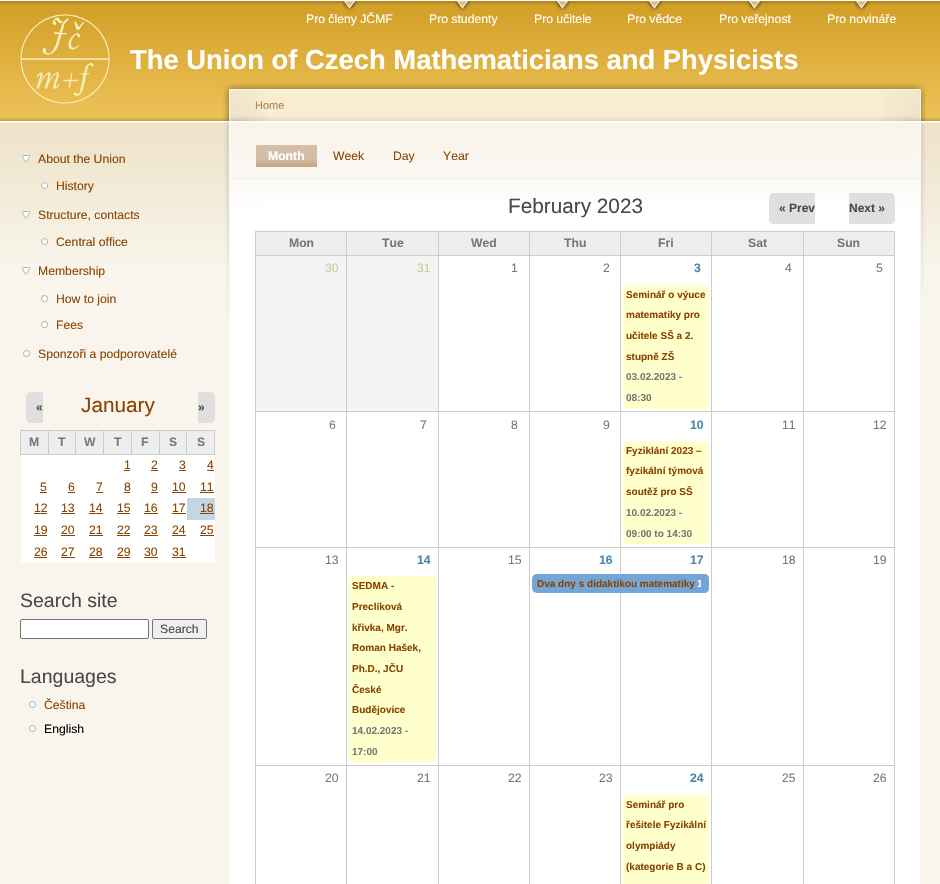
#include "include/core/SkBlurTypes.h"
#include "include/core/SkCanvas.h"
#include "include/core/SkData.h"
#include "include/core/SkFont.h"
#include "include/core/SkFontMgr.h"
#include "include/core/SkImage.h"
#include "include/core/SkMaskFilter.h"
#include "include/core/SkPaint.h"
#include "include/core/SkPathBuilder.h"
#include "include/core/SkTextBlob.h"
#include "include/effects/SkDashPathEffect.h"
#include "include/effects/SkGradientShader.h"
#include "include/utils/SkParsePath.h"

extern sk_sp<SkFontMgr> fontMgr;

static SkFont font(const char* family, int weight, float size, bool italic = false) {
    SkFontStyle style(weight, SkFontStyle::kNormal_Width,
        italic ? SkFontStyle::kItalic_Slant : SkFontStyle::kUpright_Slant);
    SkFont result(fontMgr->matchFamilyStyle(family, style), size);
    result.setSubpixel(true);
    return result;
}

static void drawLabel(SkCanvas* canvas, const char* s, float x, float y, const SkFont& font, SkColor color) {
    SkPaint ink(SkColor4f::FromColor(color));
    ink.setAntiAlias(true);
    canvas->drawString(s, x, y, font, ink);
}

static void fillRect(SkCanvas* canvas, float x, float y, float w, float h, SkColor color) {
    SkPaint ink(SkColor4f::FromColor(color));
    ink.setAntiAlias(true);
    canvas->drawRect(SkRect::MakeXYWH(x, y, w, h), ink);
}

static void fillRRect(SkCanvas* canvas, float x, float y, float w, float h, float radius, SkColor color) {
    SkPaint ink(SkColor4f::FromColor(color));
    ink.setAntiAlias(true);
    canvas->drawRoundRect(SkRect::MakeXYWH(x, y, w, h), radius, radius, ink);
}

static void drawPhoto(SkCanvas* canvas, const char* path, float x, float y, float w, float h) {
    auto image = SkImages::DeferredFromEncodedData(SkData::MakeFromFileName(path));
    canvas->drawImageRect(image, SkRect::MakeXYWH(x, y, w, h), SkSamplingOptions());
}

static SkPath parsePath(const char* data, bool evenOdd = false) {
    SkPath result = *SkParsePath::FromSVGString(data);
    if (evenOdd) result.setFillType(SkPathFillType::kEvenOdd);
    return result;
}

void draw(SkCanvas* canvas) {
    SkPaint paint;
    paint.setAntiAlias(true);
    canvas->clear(0xFFF9F5ED);
    drawPhoto(canvas, "assets/img1.png", 0, 0, 940, 260);
    drawPhoto(canvas, "assets/img2.png", 341, 1, 17, 10);
    SkFont font1 = font("Liberation Sans", 400, 12.2f);
    drawLabel(canvas, "Pro členy JČMF", 306, 23, font1, 0xFFFFFFFF);
    drawPhoto(canvas, "assets/img2.png", 454, 1, 17, 10);
    drawLabel(canvas, "Pro studenty", 429, 23, font1, 0xFFFFFFFF);
    drawPhoto(canvas, "assets/img2.png", 554, 1, 17, 10);
    drawLabel(canvas, "Pro učitele", 534, 23, font1, 0xFFFFFFFF);
    drawPhoto(canvas, "assets/img2.png", 646, 1, 17, 10);
    drawLabel(canvas, "Pro vědce", 627, 23, font1, 0xFFFFFFFF);
    drawPhoto(canvas, "assets/img2.png", 746, 1, 17, 10);
    drawLabel(canvas, "Pro veřejnost", 719, 23, font1, 0xFFFFFFFF);
    drawPhoto(canvas, "assets/img2.png", 853, 1, 17, 10);
    drawLabel(canvas, "Pro novináře", 827, 23, font1, 0xFFFFFFFF);
    drawPhoto(canvas, "assets/img3.png", 20, 14, 90, 90);
    SkFont font2 = font("Liberation Sans", 700, 27.4f);
    drawLabel(canvas, "The Union of Czech Mathematicians and Physicists", 130, 69, font2, 0xFFFFFFFF);
    drawPhoto(canvas, "assets/img4.png", 21, 155, 10, 8);
    drawLabel(canvas, "About the Union", 38, 163, font1, 0xFF884400);
    drawPhoto(canvas, "assets/img5.png", 41, 182, 7, 7);
    drawLabel(canvas, "History", 56, 190, font1, 0xFF884400);
    drawPhoto(canvas, "assets/img6.png", 21, 211, 10, 8);
    drawLabel(canvas, "Structure, contacts", 38, 219, font1, 0xFF884400);
    drawPhoto(canvas, "assets/img7.png", 41, 238, 7, 7);
    drawLabel(canvas, "Central office", 56, 246, font1, 0xFF884400);
    drawPhoto(canvas, "assets/img8.png", 21, 267, 10, 8);
    drawLabel(canvas, "Membership", 38, 275, font1, 0xFF884400);
    drawPhoto(canvas, "assets/img9.png", 41, 295, 7, 7);
    drawLabel(canvas, "How to join", 56, 303, font1, 0xFF884400);
    drawPhoto(canvas, "assets/img9.png", 41, 321, 7, 7);
    drawLabel(canvas, "Fees", 56, 329, font1, 0xFF884400);
    drawPhoto(canvas, "assets/img9.png", 23, 350, 7, 7);
    drawLabel(canvas, "Sponzoři a podporovatelé", 38, 358, font1, 0xFF884400);
    SkFont font3 = font("Liberation Sans", 400, 20.75f);
    drawLabel(canvas, "January", 81, 412, font3, 0xFF884400);
    paint.setColor(0xFFDFDFDF);
    canvas->drawPath(parsePath("M31 392H43V423H31C28 423 26 421 26 418V397C26 394 28 392 31 392Z"), paint);
    SkFont font4 = font("Liberation Sans", 700, 12);
    drawLabel(canvas, "«", 36, 411, font4, 0xFF494949);
    canvas->drawPath(parsePath("M198 392H210C213 392 215 394 215 397V418C215 421 213 423 210 423H198Z"), paint);
    drawLabel(canvas, "»", 198, 411, font4, 0xFF494949);
    fillRect(canvas, 21, 431, 27, 23, 0xFFEEEEEE);
    fillRect(canvas, 186, 430, 29, 1, 0xFFCCCCCC);
    fillRect(canvas, 214, 430, 1, 25, 0xFFCCCCCC);
    fillRect(canvas, 186, 454, 29, 1, 0xFFCCCCCC);
    fillRect(canvas, 186, 430, 1, 25, 0xFFCCCCCC);
    fillRect(canvas, 159, 430, 28, 1, 0xFFCCCCCC);
    fillRect(canvas, 159, 454, 28, 1, 0xFFCCCCCC);
    fillRect(canvas, 159, 430, 1, 25, 0xFFCCCCCC);
    fillRect(canvas, 131, 430, 29, 1, 0xFFCCCCCC);
    fillRect(canvas, 131, 454, 29, 1, 0xFFCCCCCC);
    fillRect(canvas, 131, 430, 1, 25, 0xFFCCCCCC);
    fillRect(canvas, 103, 430, 29, 1, 0xFFCCCCCC);
    fillRect(canvas, 103, 454, 29, 1, 0xFFCCCCCC);
    fillRect(canvas, 103, 430, 1, 25, 0xFFCCCCCC);
    fillRect(canvas, 75, 430, 29, 1, 0xFFCCCCCC);
    fillRect(canvas, 75, 454, 29, 1, 0xFFCCCCCC);
    fillRect(canvas, 75, 430, 1, 25, 0xFFCCCCCC);
    fillRect(canvas, 48, 430, 28, 1, 0xFFCCCCCC);
    fillRect(canvas, 48, 454, 28, 1, 0xFFCCCCCC);
    fillRect(canvas, 48, 430, 1, 25, 0xFFCCCCCC);
    fillRect(canvas, 20, 430, 29, 1, 0xFFCCCCCC);
    fillRect(canvas, 20, 454, 29, 1, 0xFFCCCCCC);
    fillRect(canvas, 20, 430, 1, 25, 0xFFCCCCCC);
    SkFont font5 = font("Liberation Sans", 700, 12.2f);
    drawLabel(canvas, "M", 29, 446, font5, 0xFF777777);
    fillRect(canvas, 49, 431, 26, 23, 0xFFEEEEEE);
    drawLabel(canvas, "T", 58, 446, font5, 0xFF777777);
    fillRect(canvas, 76, 431, 27, 23, 0xFFEEEEEE);
    drawLabel(canvas, "W", 84, 446, font5, 0xFF777777);
    fillRect(canvas, 104, 431, 27, 23, 0xFFEEEEEE);
    drawLabel(canvas, "T", 114, 446, font5, 0xFF777777);
    fillRect(canvas, 132, 431, 27, 23, 0xFFEEEEEE);
    drawLabel(canvas, "F", 141, 446, font5, 0xFF777777);
    fillRect(canvas, 160, 431, 26, 23, 0xFFEEEEEE);
    drawLabel(canvas, "S", 169, 446, font5, 0xFF777777);
    fillRect(canvas, 187, 431, 27, 23, 0xFFEEEEEE);
    drawLabel(canvas, "S", 197, 446, font5, 0xFF777777);
    fillRect(canvas, 21, 455, 194, 43, 0xFFFFFFFF);
    drawLabel(canvas, "1", 124, 469, font1, 0xFF884400);
    fillRect(canvas, 124, 470, 6, 1, 0xFF884400);
    drawLabel(canvas, "2", 151, 469, font1, 0xFF884400);
    fillRect(canvas, 151, 470, 7, 1, 0xFF884400);
    drawLabel(canvas, "3", 179, 469, font1, 0xFF884400);
    fillRect(canvas, 179, 470, 7, 1, 0xFF884400);
    drawLabel(canvas, "4", 207, 469, font1, 0xFF884400);
    fillRect(canvas, 207, 470, 7, 1, 0xFF884400);
    drawLabel(canvas, "5", 40, 491, font1, 0xFF884400);
    fillRect(canvas, 40, 492, 7, 1, 0xFF884400);
    drawLabel(canvas, "6", 68, 491, font1, 0xFF884400);
    fillRect(canvas, 68, 492, 7, 1, 0xFF884400);
    drawLabel(canvas, "7", 96, 491, font1, 0xFF884400);
    fillRect(canvas, 96, 492, 7, 1, 0xFF884400);
    drawLabel(canvas, "8", 124, 491, font1, 0xFF884400);
    fillRect(canvas, 124, 492, 6, 1, 0xFF884400);
    drawLabel(canvas, "9", 151, 491, font1, 0xFF884400);
    fillRect(canvas, 151, 492, 7, 1, 0xFF884400);
    drawLabel(canvas, "10", 172, 491, font1, 0xFF884400);
    fillRect(canvas, 172, 492, 14, 1, 0xFF884400);
    drawLabel(canvas, "11", 200, 491, font1, 0xFF884400);
    fillRect(canvas, 200, 492, 14, 1, 0xFF884400);
    fillRect(canvas, 21, 498, 166, 22, 0xFFFFFFFF);
    drawLabel(canvas, "12", 34, 512, font1, 0xFF884400);
    fillRect(canvas, 34, 513, 13, 1, 0xFF884400);
    drawLabel(canvas, "13", 61, 512, font1, 0xFF884400);
    fillRect(canvas, 61, 513, 14, 1, 0xFF884400);
    drawLabel(canvas, "14", 89, 512, font1, 0xFF884400);
    fillRect(canvas, 89, 513, 14, 1, 0xFF884400);
    drawLabel(canvas, "15", 117, 512, font1, 0xFF884400);
    fillRect(canvas, 117, 513, 13, 1, 0xFF884400);
    drawLabel(canvas, "16", 144, 512, font1, 0xFF884400);
    fillRect(canvas, 144, 513, 14, 1, 0xFF884400);
    drawLabel(canvas, "17", 172, 512, font1, 0xFF884400);
    fillRect(canvas, 172, 513, 14, 1, 0xFF884400);
    fillRect(canvas, 187, 498, 28, 22, 0xFFC3D6E4);
    drawLabel(canvas, "18", 200, 512, font1, 0xFF884400);
    fillRect(canvas, 200, 513, 14, 1, 0xFF884400);
    fillRect(canvas, 21, 520, 194, 43, 0xFFFFFFFF);
    drawLabel(canvas, "19", 34, 534, font1, 0xFF884400);
    fillRect(canvas, 34, 535, 13, 1, 0xFF884400);
    drawLabel(canvas, "20", 61, 534, font1, 0xFF884400);
    fillRect(canvas, 61, 535, 14, 1, 0xFF884400);
    drawLabel(canvas, "21", 89, 534, font1, 0xFF884400);
    fillRect(canvas, 89, 535, 14, 1, 0xFF884400);
    drawLabel(canvas, "22", 117, 534, font1, 0xFF884400);
    fillRect(canvas, 117, 535, 13, 1, 0xFF884400);
    drawLabel(canvas, "23", 144, 534, font1, 0xFF884400);
    fillRect(canvas, 144, 535, 14, 1, 0xFF884400);
    drawLabel(canvas, "24", 172, 534, font1, 0xFF884400);
    fillRect(canvas, 172, 535, 14, 1, 0xFF884400);
    drawLabel(canvas, "25", 200, 534, font1, 0xFF884400);
    fillRect(canvas, 200, 535, 14, 1, 0xFF884400);
    drawLabel(canvas, "26", 34, 556, font1, 0xFF884400);
    fillRect(canvas, 34, 557, 13, 1, 0xFF884400);
    drawLabel(canvas, "27", 61, 556, font1, 0xFF884400);
    fillRect(canvas, 61, 557, 14, 1, 0xFF884400);
    drawLabel(canvas, "28", 89, 556, font1, 0xFF884400);
    fillRect(canvas, 89, 557, 14, 1, 0xFF884400);
    drawLabel(canvas, "29", 117, 556, font1, 0xFF884400);
    fillRect(canvas, 117, 557, 13, 1, 0xFF884400);
    drawLabel(canvas, "30", 144, 556, font1, 0xFF884400);
    fillRect(canvas, 144, 557, 14, 1, 0xFF884400);
    drawLabel(canvas, "31", 172, 556, font1, 0xFF884400);
    fillRect(canvas, 172, 557, 14, 1, 0xFF884400);
    SkFont font6 = font("Liberation Sans", 400, 19.5f);
    drawLabel(canvas, "Search site", 20, 607, font6, 0xFF494949);
    paint.setColor(0xFFFFFFFF);
    canvas->drawRoundRect(SkRect::MakeXYWH(20.5f, 619.5f, 128, 19), 1.5f, 1.5f, paint);
    paint.setStroke(true);
    paint.setStrokeWidth(1);
    paint.setColor(0xFF767676);
    canvas->drawRoundRect(SkRect::MakeXYWH(20.5f, 619.5f, 128, 19), 1.5f, 1.5f, paint);
    paint.setStroke(false);
    paint.setColor(0xFFEFEFEF);
    canvas->drawRoundRect(SkRect::MakeXYWH(152.5f, 619.5f, 54, 19), 1.5f, 1.5f, paint);
    paint.setStroke(true);
    paint.setColor(0xFF767676);
    canvas->drawRoundRect(SkRect::MakeXYWH(152.5f, 619.5f, 54, 19), 1.5f, 1.5f, paint);
    drawLabel(canvas, "Search", 160, 633, font1, 0xFF494949);
    drawLabel(canvas, "Languages", 20, 683, font6, 0xFF494949);
    drawPhoto(canvas, "assets/img9.png", 29, 701, 7, 7);
    drawLabel(canvas, "Čeština", 44, 709, font1, 0xFF884400);
    drawPhoto(canvas, "assets/img9.png", 29, 725, 7, 7);
    drawLabel(canvas, "English", 44, 733, font1, 0xFF000000);
    fillRect(canvas, 230, 200, 690, 684, 0xFFFFFFFF);
    drawPhoto(canvas, "assets/img10.png", 230, 80, 690, 120);
    drawPhoto(canvas, "assets/img11.png", 882, 84, 44, 235);
    drawPhoto(canvas, "assets/img12.png", 223, 84, 44, 237);
    SkFont font7 = font("Liberation Sans", 400, 11);
    drawLabel(canvas, "Home", 255, 109, font7, 0xFFAB834F);
    fillRect(canvas, 229, 178, 692, 1, 0xFFF2EFE9);
    drawPhoto(canvas, "assets/img13.png", 256, 145, 61, 22);
    drawLabel(canvas, "Month", 268, 160, font5, 0xFFFFFFFF);
    drawLabel(canvas, "Week", 333, 160, font1, 0xFF884400);
    drawLabel(canvas, "Day", 393, 160, font1, 0xFF884400);
    drawLabel(canvas, "Year", 443, 160, font1, 0xFF884400);
    drawLabel(canvas, "February 2023", 508, 213, font3, 0xFF494949);
    paint.setStroke(false);
    paint.setColor(0xFFDFDFDF);
    canvas->drawPath(parsePath("M774 193H815V224H774C771 224 769 222 769 219V198C769 195 771 193 774 193Z"), paint);
    drawLabel(canvas, "« Prev", 779, 212, font4, 0xFF494949);
    canvas->drawPath(parsePath("M849 193H890C893 193 895 195 895 198V219C895 222 893 224 890 224H849Z"), paint);
    drawLabel(canvas, "Next »", 849, 212, font4, 0xFF494949);
    fillRect(canvas, 256, 232, 90, 23, 0xFFEEEEEE);
    fillRect(canvas, 803, 231, 92, 1, 0xFFCCCCCC);
    fillRect(canvas, 803, 255, 92, 1, 0xFFCCCCCC);
    fillRect(canvas, 803, 411, 92, 1, 0xFFCCCCCC);
    fillRect(canvas, 803, 547, 92, 1, 0xFFCCCCCC);
    fillRect(canvas, 803, 765, 92, 1, 0xFFCCCCCC);
    fillRect(canvas, 803, 791, 1, 93, 0xFFCCCCCC);
    fillRect(canvas, 803, 765, 1, 27, 0xFFCCCCCC);
    fillRect(canvas, 711, 765, 93, 1, 0xFFCCCCCC);
    fillRect(canvas, 803, 572, 1, 194, 0xFFCCCCCC);
    fillRect(canvas, 803, 547, 1, 26, 0xFFCCCCCC);
    fillRect(canvas, 711, 547, 93, 1, 0xFFCCCCCC);
    fillRect(canvas, 803, 437, 1, 111, 0xFFCCCCCC);
    fillRect(canvas, 803, 411, 1, 27, 0xFFCCCCCC);
    fillRect(canvas, 711, 411, 93, 1, 0xFFCCCCCC);
    fillRect(canvas, 803, 281, 1, 131, 0xFFCCCCCC);
    fillRect(canvas, 803, 255, 1, 27, 0xFFCCCCCC);
    fillRect(canvas, 711, 255, 93, 1, 0xFFCCCCCC);
    fillRect(canvas, 803, 231, 1, 25, 0xFFCCCCCC);
    fillRect(canvas, 711, 231, 93, 1, 0xFFCCCCCC);
    fillRect(canvas, 711, 791, 1, 93, 0xFFCCCCCC);
    fillRect(canvas, 711, 765, 1, 27, 0xFFCCCCCC);
    fillRect(canvas, 620, 765, 92, 1, 0xFFCCCCCC);
    fillRect(canvas, 711, 572, 1, 194, 0xFFCCCCCC);
    fillRect(canvas, 711, 547, 1, 26, 0xFFCCCCCC);
    fillRect(canvas, 620, 547, 92, 1, 0xFFCCCCCC);
    fillRect(canvas, 711, 437, 1, 111, 0xFFCCCCCC);
    fillRect(canvas, 711, 411, 1, 27, 0xFFCCCCCC);
    fillRect(canvas, 620, 411, 92, 1, 0xFFCCCCCC);
    fillRect(canvas, 711, 281, 1, 131, 0xFFCCCCCC);
    fillRect(canvas, 711, 255, 1, 27, 0xFFCCCCCC);
    fillRect(canvas, 620, 255, 92, 1, 0xFFCCCCCC);
    fillRect(canvas, 711, 231, 1, 25, 0xFFCCCCCC);
    fillRect(canvas, 620, 231, 92, 1, 0xFFCCCCCC);
    fillRect(canvas, 620, 547, 1, 26, 0xFFCCCCCC);
    fillRect(canvas, 529, 547, 92, 1, 0xFFCCCCCC);
    fillRect(canvas, 620, 437, 1, 111, 0xFFCCCCCC);
    fillRect(canvas, 620, 411, 1, 27, 0xFFCCCCCC);
    fillRect(canvas, 529, 411, 92, 1, 0xFFCCCCCC);
    fillRect(canvas, 620, 281, 1, 131, 0xFFCCCCCC);
    fillRect(canvas, 620, 255, 1, 27, 0xFFCCCCCC);
    fillRect(canvas, 529, 255, 92, 1, 0xFFCCCCCC);
    fillRect(canvas, 620, 231, 1, 25, 0xFFCCCCCC);
    fillRect(canvas, 529, 231, 92, 1, 0xFFCCCCCC);
    fillRect(canvas, 620, 791, 1, 93, 0xFFCCCCCC);
    fillRect(canvas, 620, 765, 1, 27, 0xFFCCCCCC);
    fillRect(canvas, 529, 765, 92, 1, 0xFFCCCCCC);
    fillRect(canvas, 529, 791, 1, 93, 0xFFCCCCCC);
    fillRect(canvas, 529, 765, 1, 27, 0xFFCCCCCC);
    fillRect(canvas, 438, 765, 92, 1, 0xFFCCCCCC);
    fillRect(canvas, 529, 572, 1, 194, 0xFFCCCCCC);
    fillRect(canvas, 529, 547, 1, 26, 0xFFCCCCCC);
    fillRect(canvas, 438, 547, 92, 1, 0xFFCCCCCC);
    fillRect(canvas, 529, 437, 1, 111, 0xFFCCCCCC);
    fillRect(canvas, 529, 411, 1, 27, 0xFFCCCCCC);
    fillRect(canvas, 438, 411, 92, 1, 0xFFCCCCCC);
    fillRect(canvas, 529, 281, 1, 131, 0xFFCCCCCC);
    fillRect(canvas, 529, 255, 1, 27, 0xFFCCCCCC);
    fillRect(canvas, 438, 255, 92, 1, 0xFFCCCCCC);
    fillRect(canvas, 529, 231, 1, 25, 0xFFCCCCCC);
    fillRect(canvas, 438, 231, 92, 1, 0xFFCCCCCC);
    fillRect(canvas, 438, 791, 1, 93, 0xFFCCCCCC);
    fillRect(canvas, 438, 765, 1, 27, 0xFFCCCCCC);
    fillRect(canvas, 346, 765, 93, 1, 0xFFCCCCCC);
    fillRect(canvas, 438, 572, 1, 194, 0xFFCCCCCC);
    fillRect(canvas, 438, 547, 1, 26, 0xFFCCCCCC);
    fillRect(canvas, 346, 547, 93, 1, 0xFFCCCCCC);
    fillRect(canvas, 438, 437, 1, 111, 0xFFCCCCCC);
    fillRect(canvas, 438, 411, 1, 27, 0xFFCCCCCC);
    fillRect(canvas, 346, 411, 93, 1, 0xFFCCCCCC);
    fillRect(canvas, 438, 281, 1, 131, 0xFFCCCCCC);
    fillRect(canvas, 438, 255, 1, 27, 0xFFCCCCCC);
    fillRect(canvas, 346, 255, 93, 1, 0xFFCCCCCC);
    fillRect(canvas, 438, 231, 1, 25, 0xFFCCCCCC);
    fillRect(canvas, 346, 231, 93, 1, 0xFFCCCCCC);
    fillRect(canvas, 346, 791, 1, 93, 0xFFCCCCCC);
    fillRect(canvas, 346, 765, 1, 27, 0xFFCCCCCC);
    fillRect(canvas, 255, 765, 92, 1, 0xFFCCCCCC);
    fillRect(canvas, 346, 572, 1, 194, 0xFFCCCCCC);
    fillRect(canvas, 346, 547, 1, 26, 0xFFCCCCCC);
    fillRect(canvas, 255, 547, 92, 1, 0xFFCCCCCC);
    fillRect(canvas, 346, 437, 1, 111, 0xFFCCCCCC);
    fillRect(canvas, 346, 411, 1, 27, 0xFFCCCCCC);
    fillRect(canvas, 255, 411, 92, 1, 0xFFCCCCCC);
    fillRect(canvas, 346, 281, 1, 131, 0xFFCCCCCC);
    fillRect(canvas, 346, 255, 1, 27, 0xFFCCCCCC);
    fillRect(canvas, 255, 255, 92, 1, 0xFFCCCCCC);
    fillRect(canvas, 346, 231, 1, 25, 0xFFCCCCCC);
    fillRect(canvas, 255, 231, 92, 1, 0xFFCCCCCC);
    fillRect(canvas, 255, 791, 1, 93, 0xFFCCCCCC);
    fillRect(canvas, 255, 572, 1, 220, 0xFFCCCCCC);
    fillRect(canvas, 255, 437, 1, 136, 0xFFCCCCCC);
    fillRect(canvas, 255, 281, 1, 157, 0xFFCCCCCC);
    fillRect(canvas, 255, 255, 1, 27, 0xFFCCCCCC);
    fillRect(canvas, 255, 231, 1, 25, 0xFFCCCCCC);
    drawLabel(canvas, "Mon", 289, 247, font5, 0xFF777777);
    fillRect(canvas, 347, 232, 91, 23, 0xFFEEEEEE);
    drawLabel(canvas, "Tue", 382, 247, font5, 0xFF777777);
    fillRect(canvas, 439, 232, 90, 23, 0xFFEEEEEE);
    drawLabel(canvas, "Wed", 471, 247, font5, 0xFF777777);
    fillRect(canvas, 530, 232, 90, 23, 0xFFEEEEEE);
    drawLabel(canvas, "Thu", 564, 247, font5, 0xFF777777);
    fillRect(canvas, 621, 232, 90, 23, 0xFFEEEEEE);
    drawLabel(canvas, "Fri", 658, 247, font5, 0xFF777777);
    fillRect(canvas, 712, 232, 91, 23, 0xFFEEEEEE);
    drawLabel(canvas, "Sat", 748, 247, font5, 0xFF777777);
    fillRect(canvas, 804, 232, 90, 23, 0xFFEEEEEE);
    fillRect(canvas, 894, 791, 1, 93, 0xFFCCCCCC);
    fillRect(canvas, 894, 572, 1, 220, 0xFFCCCCCC);
    fillRect(canvas, 894, 437, 1, 136, 0xFFCCCCCC);
    fillRect(canvas, 894, 281, 1, 157, 0xFFCCCCCC);
    fillRect(canvas, 894, 255, 1, 27, 0xFFCCCCCC);
    fillRect(canvas, 894, 231, 1, 25, 0xFFCCCCCC);
    drawLabel(canvas, "Sun", 837, 247, font5, 0xFF777777);
    fillRect(canvas, 256, 256, 90, 155, 0xFFF4F4F4);
    drawLabel(canvas, "30", 325, 272, font1, 0xFFCCCC99);
    fillRect(canvas, 347, 256, 91, 155, 0xFFF4F4F4);
    drawLabel(canvas, "31", 417, 272, font1, 0xFFCCCC99);
    drawLabel(canvas, "1", 511, 272, font1, 0xFF777777);
    drawLabel(canvas, "2", 603, 272, font1, 0xFF777777);
    drawLabel(canvas, "3", 694, 272, font5, 0xFF4B85AC);
    drawLabel(canvas, "4", 785, 272, font1, 0xFF777777);
    drawLabel(canvas, "5", 876, 272, font1, 0xFF777777);
    fillRRect(canvas, 623, 285, 86, 124, 5, 0xFFFFFFCC);
    SkFont font8 = font("Liberation Sans", 700, 10);
    drawLabel(canvas, "Seminář o výuce", 626, 298, font8, 0xFF884400);
    drawLabel(canvas, "matematiky pro", 626, 318, font8, 0xFF884400);
    drawLabel(canvas, "učitele SŠ a 2.", 626, 339, font8, 0xFF884400);
    drawLabel(canvas, "stupně ZŠ", 626, 360, font8, 0xFF884400);
    drawLabel(canvas, "03.02.2023 -", 626, 380, font8, 0xFF777777);
    drawLabel(canvas, "08:30", 626, 401, font8, 0xFF777777);
    drawLabel(canvas, "6", 329, 429, font1, 0xFF777777);
    drawLabel(canvas, "7", 420, 429, font1, 0xFF777777);
    drawLabel(canvas, "8", 511, 429, font1, 0xFF777777);
    drawLabel(canvas, "9", 603, 429, font1, 0xFF777777);
    drawLabel(canvas, "10", 690, 429, font5, 0xFF4B85AC);
    drawLabel(canvas, "11", 782, 429, font1, 0xFF777777);
    drawLabel(canvas, "12", 873, 429, font1, 0xFF777777);
    fillRRect(canvas, 623, 441, 86, 103, 5, 0xFFFFFFCC);
    drawLabel(canvas, "Fyziklání 2023 –", 626, 454, font8, 0xFF884400);
    drawLabel(canvas, "fyzikální týmová", 626, 474, font8, 0xFF884400);
    drawLabel(canvas, "soutěž pro SŠ", 626, 495, font8, 0xFF884400);
    drawLabel(canvas, "10.02.2023 -", 626, 516, font8, 0xFF777777);
    drawLabel(canvas, "09:00 to 14:30", 626, 537, font8, 0xFF777777);
    drawLabel(canvas, "13", 325, 564, font1, 0xFF777777);
    drawLabel(canvas, "14", 417, 564, font5, 0xFF4B85AC);
    drawLabel(canvas, "15", 508, 564, font1, 0xFF777777);
    drawLabel(canvas, "16", 599, 564, font5, 0xFF4B85AC);
    drawLabel(canvas, "17", 690, 564, font5, 0xFF4B85AC);
    drawLabel(canvas, "18", 782, 564, font1, 0xFF777777);
    drawLabel(canvas, "19", 873, 564, font1, 0xFF777777);
    fillRect(canvas, 620, 592, 1, 174, 0xFFCCCCCC);
    fillRRect(canvas, 349, 576, 87, 186, 5, 0xFFFFFFCC);
    drawLabel(canvas, "SEDMA -", 352, 589, font8, 0xFF884400);
    drawLabel(canvas, "Preclíková", 352, 610, font8, 0xFF884400);
    drawLabel(canvas, "křivka, Mgr.", 352, 631, font8, 0xFF884400);
    drawLabel(canvas, "Roman Hašek,", 352, 651, font8, 0xFF884400);
    drawLabel(canvas, "Ph.D., JČU", 352, 672, font8, 0xFF884400);
    drawLabel(canvas, "České", 352, 693, font8, 0xFF884400);
    drawLabel(canvas, "Budějovice", 352, 713, font8, 0xFF884400);
    drawLabel(canvas, "14.02.2023 -", 352, 734, font8, 0xFF777777);
    drawLabel(canvas, "17:00", 352, 755, font8, 0xFF777777);
    fillRRect(canvas, 532, 574, 177, 19, 5, 0xFF74A5D7);
    drawLabel(canvas, "Dva dny s didaktikou matematiky", 537, 587, font8, 0xFF884400);
    drawLabel(canvas, "1", 697, 587, font8, 0xFFFFFFFF);
    paint.setColor(0xFF74A5D7);
    canvas->drawPath(parsePath("M701 574H704C707 574 709 576 709 579V588C709 591 707 593 704 593H701Z"), paint);
    drawLabel(canvas, "20", 325, 782, font1, 0xFF777777);
    drawLabel(canvas, "21", 417, 782, font1, 0xFF777777);
    drawLabel(canvas, "22", 508, 782, font1, 0xFF777777);
    drawLabel(canvas, "23", 599, 782, font1, 0xFF777777);
    drawLabel(canvas, "24", 690, 782, font5, 0xFF4B85AC);
    drawLabel(canvas, "25", 782, 782, font1, 0xFF777777);
    drawLabel(canvas, "26", 873, 782, font1, 0xFF777777);
    fillRRect(canvas, 623, 795, 86, 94, 5, 0xFFFFFFCC);
    drawLabel(canvas, "Seminář pro", 626, 808, font8, 0xFF884400);
    drawLabel(canvas, "řešitele Fyzikální", 626, 828, font8, 0xFF884400);
    drawLabel(canvas, "olympiády", 626, 849, font8, 0xFF884400);
    drawLabel(canvas, "(kategorie B a C)", 626, 870, font8, 0xFF884400);
}
